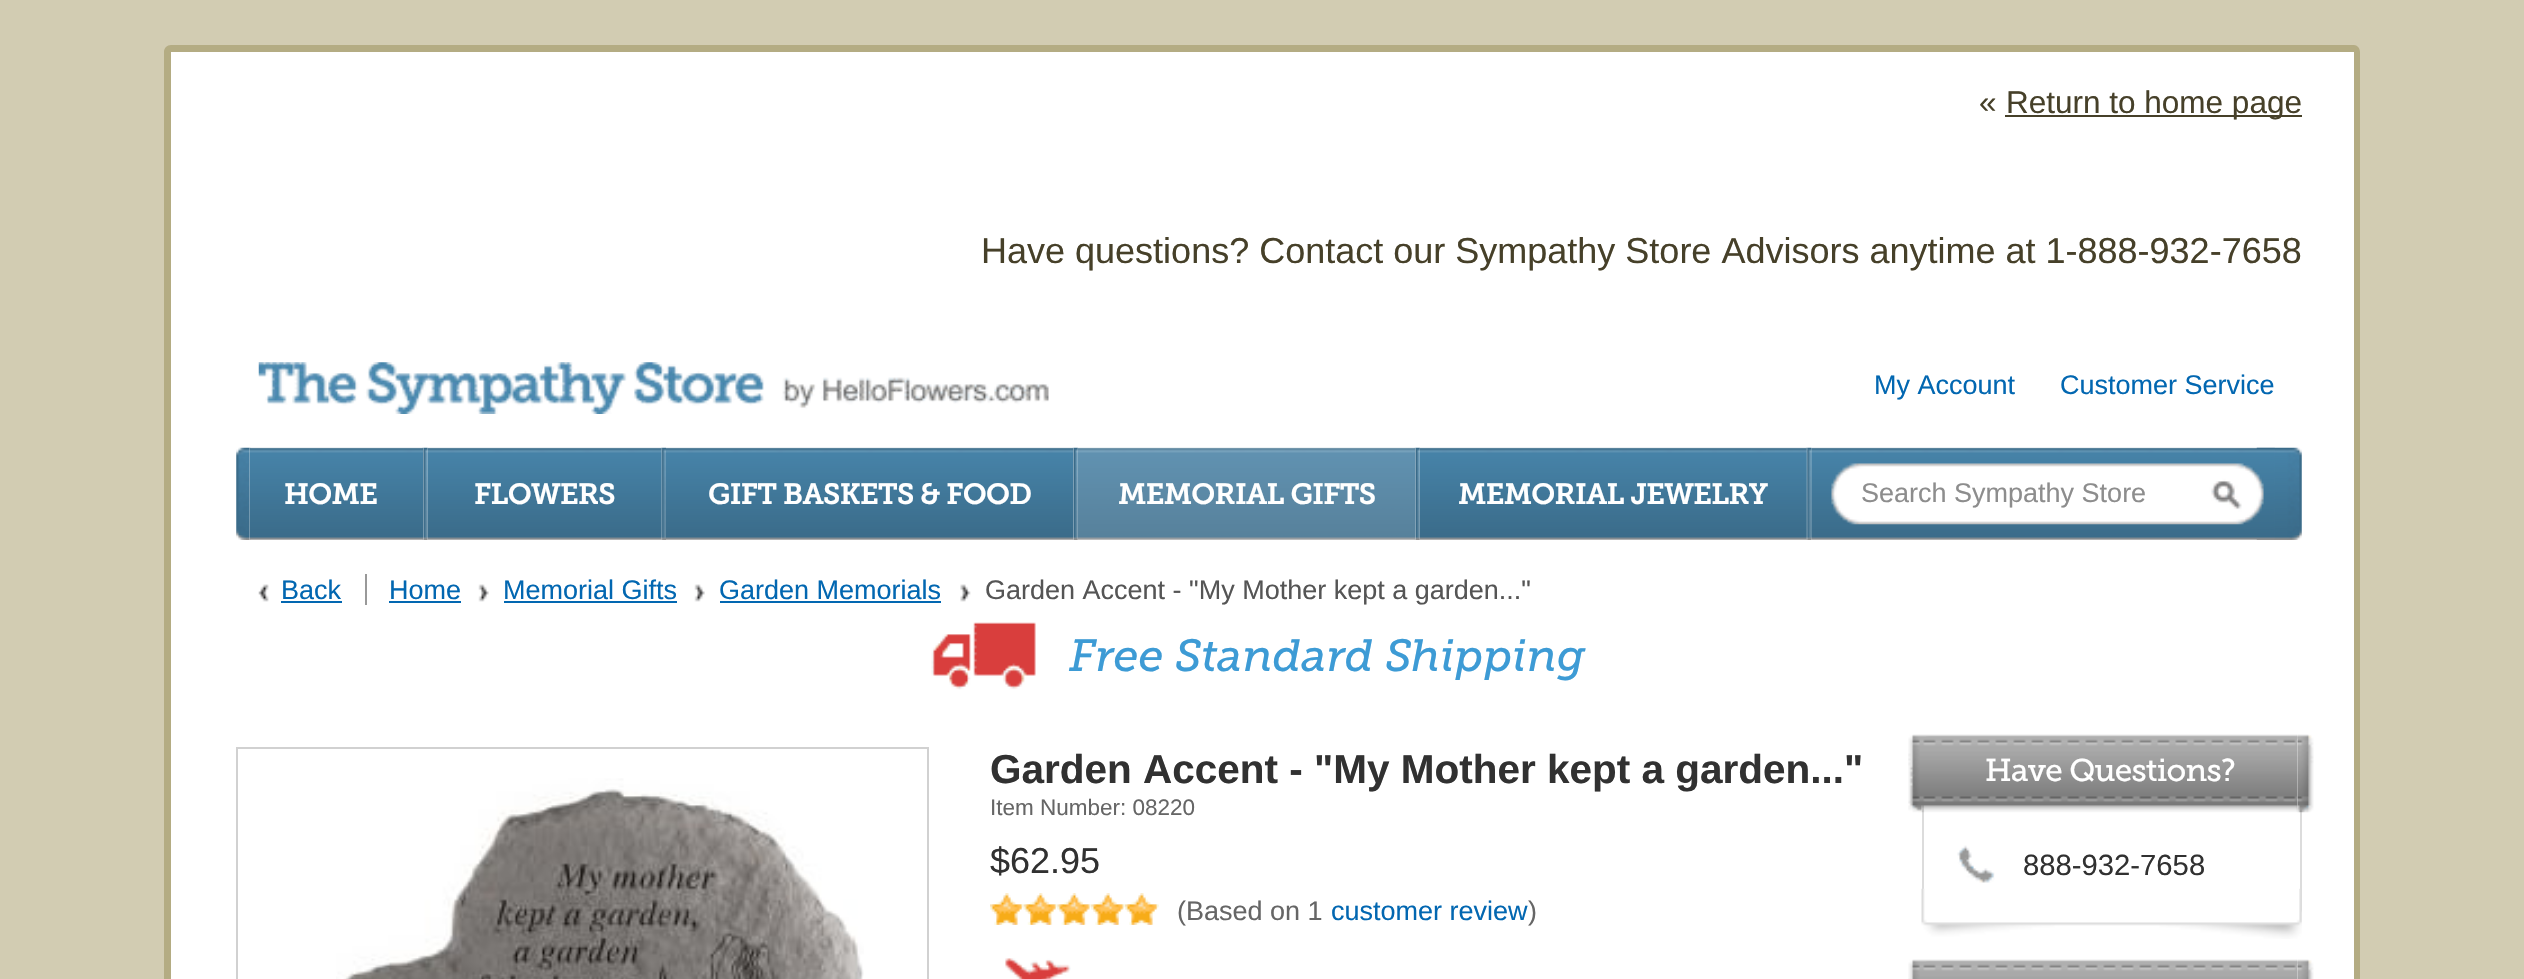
#include "include/core/SkBlurTypes.h"
#include "include/core/SkCanvas.h"
#include "include/core/SkData.h"
#include "include/core/SkFont.h"
#include "include/core/SkFontMgr.h"
#include "include/core/SkImage.h"
#include "include/core/SkMaskFilter.h"
#include "include/core/SkPaint.h"
#include "include/core/SkPathBuilder.h"
#include "include/core/SkTextBlob.h"
#include "include/effects/SkDashPathEffect.h"
#include "include/effects/SkGradientShader.h"
#include "include/utils/SkParsePath.h"

extern sk_sp<SkFontMgr> fontMgr;

static SkFont font(const char* family, int weight, float size, bool italic = false) {
    SkFontStyle style(weight, SkFontStyle::kNormal_Width,
        italic ? SkFontStyle::kItalic_Slant : SkFontStyle::kUpright_Slant);
    SkFont result(fontMgr->matchFamilyStyle(family, style), size);
    result.setSubpixel(true);
    return result;
}

static void drawLabel(SkCanvas* canvas, const char* s, float x, float y, const SkFont& font, SkColor color) {
    SkPaint ink(SkColor4f::FromColor(color));
    ink.setAntiAlias(true);
    canvas->drawString(s, x, y, font, ink);
}

static void drawTracked(SkCanvas* canvas, const char* s, float x, float y, const SkFont& font, const SkPaint& ink, float letter, float word) {
    std::vector<SkGlyphID> glyphs(font.countText(s, strlen(s), SkTextEncoding::kUTF8));
    std::vector<float> xs(glyphs.size());
    font.textToGlyphs(s, strlen(s), SkTextEncoding::kUTF8, glyphs);
    font.getXPos(glyphs, xs, x);
    float extra = 0;
    for (size_t i = 0; i < glyphs.size(); i++) {
        xs[i] += extra;
        extra += letter + word * (glyphs[i] == font.unicharToGlyph(' '));
    }
    canvas->drawTextBlob(SkTextBlob::MakeFromPosHGlyphs(glyphs, xs, y, font), 0, 0, ink);
}

static void fillRect(SkCanvas* canvas, float x, float y, float w, float h, SkColor color) {
    SkPaint ink(SkColor4f::FromColor(color));
    ink.setAntiAlias(true);
    canvas->drawRect(SkRect::MakeXYWH(x, y, w, h), ink);
}

static void drawPhoto(SkCanvas* canvas, const char* path, float x, float y, float w, float h) {
    auto image = SkImages::DeferredFromEncodedData(SkData::MakeFromFileName(path));
    canvas->drawImageRect(image, SkRect::MakeXYWH(x, y, w, h), SkSamplingOptions());
}

static SkPath parsePath(const char* data, bool evenOdd = false) {
    SkPath result = *SkParsePath::FromSVGString(data);
    if (evenOdd) result.setFillType(SkPathFillType::kEvenOdd);
    return result;
}

void draw(SkCanvas* canvas) {
    SkPaint paint;
    paint.setAntiAlias(true);
    canvas->clear(0xFFD2CCB2);
    fillRect(canvas, 171, 52, 2183, 927, 0xFFFFFFFF);
    paint.setColor(0xFFB4AC83);
    canvas->drawPath(parsePath("M171 45H2354C2357 45 2360 48 2360 52V304H164V52C164 48 167 45 171 45ZM171 52H2354V304H171Z", true), paint);
    SkFont font1 = font("Liberation Sans", 400, 31.5f);
    drawLabel(canvas, "«", 1979, 113, font1, 0xFF464029);
    fillRect(canvas, 2005, 115, 297, 2, 0xFF464029);
    drawLabel(canvas, "Return to home page", 2006, 113, font1, 0xFF464029);
    SkFont font2 = font("Liberation Sans", 400, 36);
    drawLabel(canvas, "Have questions? Contact our Sympathy Store Advisors anytime at 1-888-932-7658", 981, 263, font2, 0xFF464029);
    canvas->drawPath(parsePath("M164 304H2360V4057C2360 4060 2357 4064 2354 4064H171C167 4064 164 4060 164 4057ZM171 304H2354V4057H171Z", true), paint);
    drawPhoto(canvas, "assets/img1.png", 258, 362, 791, 52);
    SkFont font3 = font("Liberation Sans", 400, 27);
    drawLabel(canvas, "My Account", 1874, 394, font3, 0xFF0267B1);
    drawLabel(canvas, "Customer Service", 2060, 394, font3, 0xFF0267B1);
    drawPhoto(canvas, "assets/img2.png", 236, 447, 15, 93);
    drawPhoto(canvas, "assets/img3.png", 2256, 447, 46, 93);
    drawPhoto(canvas, "assets/img4.png", 422, 447, 6, 93);
    drawPhoto(canvas, "assets/img5.png", 249, 447, 174, 93);
    SkFont font4 = font("Museo Slab", 600, 29.25f);
    paint.setColor(0xFFFFFFFF);
    drawTracked(canvas, "HOME", 284, 504, font4, paint, -0.7f, 0);
    drawPhoto(canvas, "assets/img6.png", 661, 447, 5, 93);
    drawPhoto(canvas, "assets/img7.png", 427, 447, 235, 93);
    drawTracked(canvas, "FLOWERS", 474, 504, font4, paint, -0.7f, 0);
    drawPhoto(canvas, "assets/img8.png", 1072, 447, 6, 93);
    drawPhoto(canvas, "assets/img9.png", 666, 447, 408, 93);
    drawTracked(canvas, "GIFT BASKETS & FOOD", 708, 504, font4, paint, -0.7f, 0);
    drawPhoto(canvas, "assets/img8.png", 1414, 447, 6, 93);
    drawPhoto(canvas, "assets/img10.png", 1077, 447, 339, 93);
    drawTracked(canvas, "MEMORIAL GIFTS", 1118, 504, font4, paint, -0.7f, 0);
    drawPhoto(canvas, "assets/img11.png", 1806, 447, 6, 93);
    drawPhoto(canvas, "assets/img12.png", 1419, 447, 388, 93);
    drawTracked(canvas, "MEMORIAL JEWELRY", 1458, 504, font4, paint, -0.7f, 0);
    drawPhoto(canvas, "assets/img13.png", 1811, 447, 464, 93);
    drawPhoto(canvas, "assets/img14.png", 1831, 463, 433, 62);
    drawLabel(canvas, "Search Sympathy Store", 1861, 502, font3, 0xFF8D8D8D);
    drawPhoto(canvas, "assets/img15.png", 258, 584, 11, 18);
    fillRect(canvas, 365, 574, 2, 31, 0xFF999999);
    drawLabel(canvas, "Back", 281, 599, font3, 0xFF0267B1);
    fillRect(canvas, 281, 601, 61, 2, 0xFF0267B1);
    drawLabel(canvas, "Home", 389, 599, font3, 0xFF0267B1);
    fillRect(canvas, 389, 601, 72, 2, 0xFF0267B1);
    drawPhoto(canvas, "assets/img16.png", 478, 584, 11, 18);
    drawLabel(canvas, "Memorial Gifts", 503, 599, font3, 0xFF0267B1);
    fillRect(canvas, 504, 601, 173, 2, 0xFF0267B1);
    drawPhoto(canvas, "assets/img16.png", 694, 584, 11, 18);
    drawLabel(canvas, "Garden Memorials", 719, 599, font3, 0xFF0267B1);
    fillRect(canvas, 720, 601, 221, 2, 0xFF0267B1);
    drawPhoto(canvas, "assets/img17.png", 960, 584, 11, 18);
    drawLabel(canvas, "Garden Accent - \"My Mother kept a garden...\"", 985, 599, font3, 0xFF555555);
    drawPhoto(canvas, "assets/img18.png", 931, 622, 105, 68);
    SkFont font5 = font("Museo Slab", 400, 45, true);
    drawLabel(canvas, "Free Standard Shipping", 1069, 671, font5, 0xFF3D9BD5);
    paint.setStroke(true);
    paint.setStrokeWidth(2);
    paint.setColor(0xFFD1D1D1);
    canvas->drawRect(SkRect::MakeXYWH(237, 748, 691, 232), paint);
    drawPhoto(canvas, "assets/img19.png", 336, 778, 528, 201);
    SkFont font6 = font("Liberation Sans", 700, 40.5f);
    drawLabel(canvas, "Garden Accent - \"My Mother kept a garden...\"", 990, 783, font6, 0xFF313131);
    SkFont font7 = font("Liberation Sans", 400, 22.5f);
    drawLabel(canvas, "Item Number: 08220", 990, 815, font7, 0xFF666666);
    drawLabel(canvas, "$62.95", 990, 873, font2, 0xFF313131);
    drawPhoto(canvas, "assets/img20.png", 990, 893, 34, 32);
    drawPhoto(canvas, "assets/img21.png", 990, 893, 34, 32);
    drawPhoto(canvas, "assets/img22.png", 1023, 893, 35, 32);
    drawPhoto(canvas, "assets/img23.png", 1023, 893, 35, 32);
    drawPhoto(canvas, "assets/img24.png", 1057, 893, 35, 32);
    drawPhoto(canvas, "assets/img25.png", 1057, 893, 35, 32);
    drawPhoto(canvas, "assets/img26.png", 1091, 893, 34, 32);
    drawPhoto(canvas, "assets/img27.png", 1091, 893, 34, 32);
    drawPhoto(canvas, "assets/img20.png", 1125, 893, 34, 32);
    drawPhoto(canvas, "assets/img21.png", 1125, 893, 34, 32);
    drawLabel(canvas, "(Based on 1", 1177, 920, font3, 0xFF666666);
    drawLabel(canvas, "customer review", 1331, 920, font3, 0xFF0267B1);
    drawLabel(canvas, ")", 1528, 920, font3, 0xFF666666);
    drawPhoto(canvas, "assets/img28.png", 1005, 958, 66, 21);
    paint.setColor(0xFFDCDCDC);
    canvas->drawRoundRect(SkRect::MakeXYWH(1923, 737, 378, 178), 6, 6, paint);
    drawPhoto(canvas, "assets/img29.png", 2296, 734, 18, 79);
    drawPhoto(canvas, "assets/img30.png", 1908, 734, 390, 79);
    SkFont font8 = font("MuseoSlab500", 400, 31.5f);
    paint.setStroke(false);
    paint.setColor(0xFFFFFFFF);
    drawTracked(canvas, "Have Questions?", 1985, 781, font8, paint, -0.7f, 0);
    drawPhoto(canvas, "assets/img31.png", 1921, 888, 381, 51);
    drawPhoto(canvas, "assets/img32.png", 1957, 845, 38, 38);
    SkFont font9 = font("Liberation Sans", 400, 29.25f);
    drawLabel(canvas, "888-932-7658", 2023, 875, font9, 0xFF313131);
    paint.setStroke(true);
    paint.setColor(0xFFDCDCDC);
    canvas->drawRoundRect(SkRect::MakeXYWH(1923, 962, 378, 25), 6, 6, paint);
    drawPhoto(canvas, "assets/img33.png", 2296, 959, 18, 20);
    drawPhoto(canvas, "assets/img34.png", 1908, 959, 390, 20);
}
